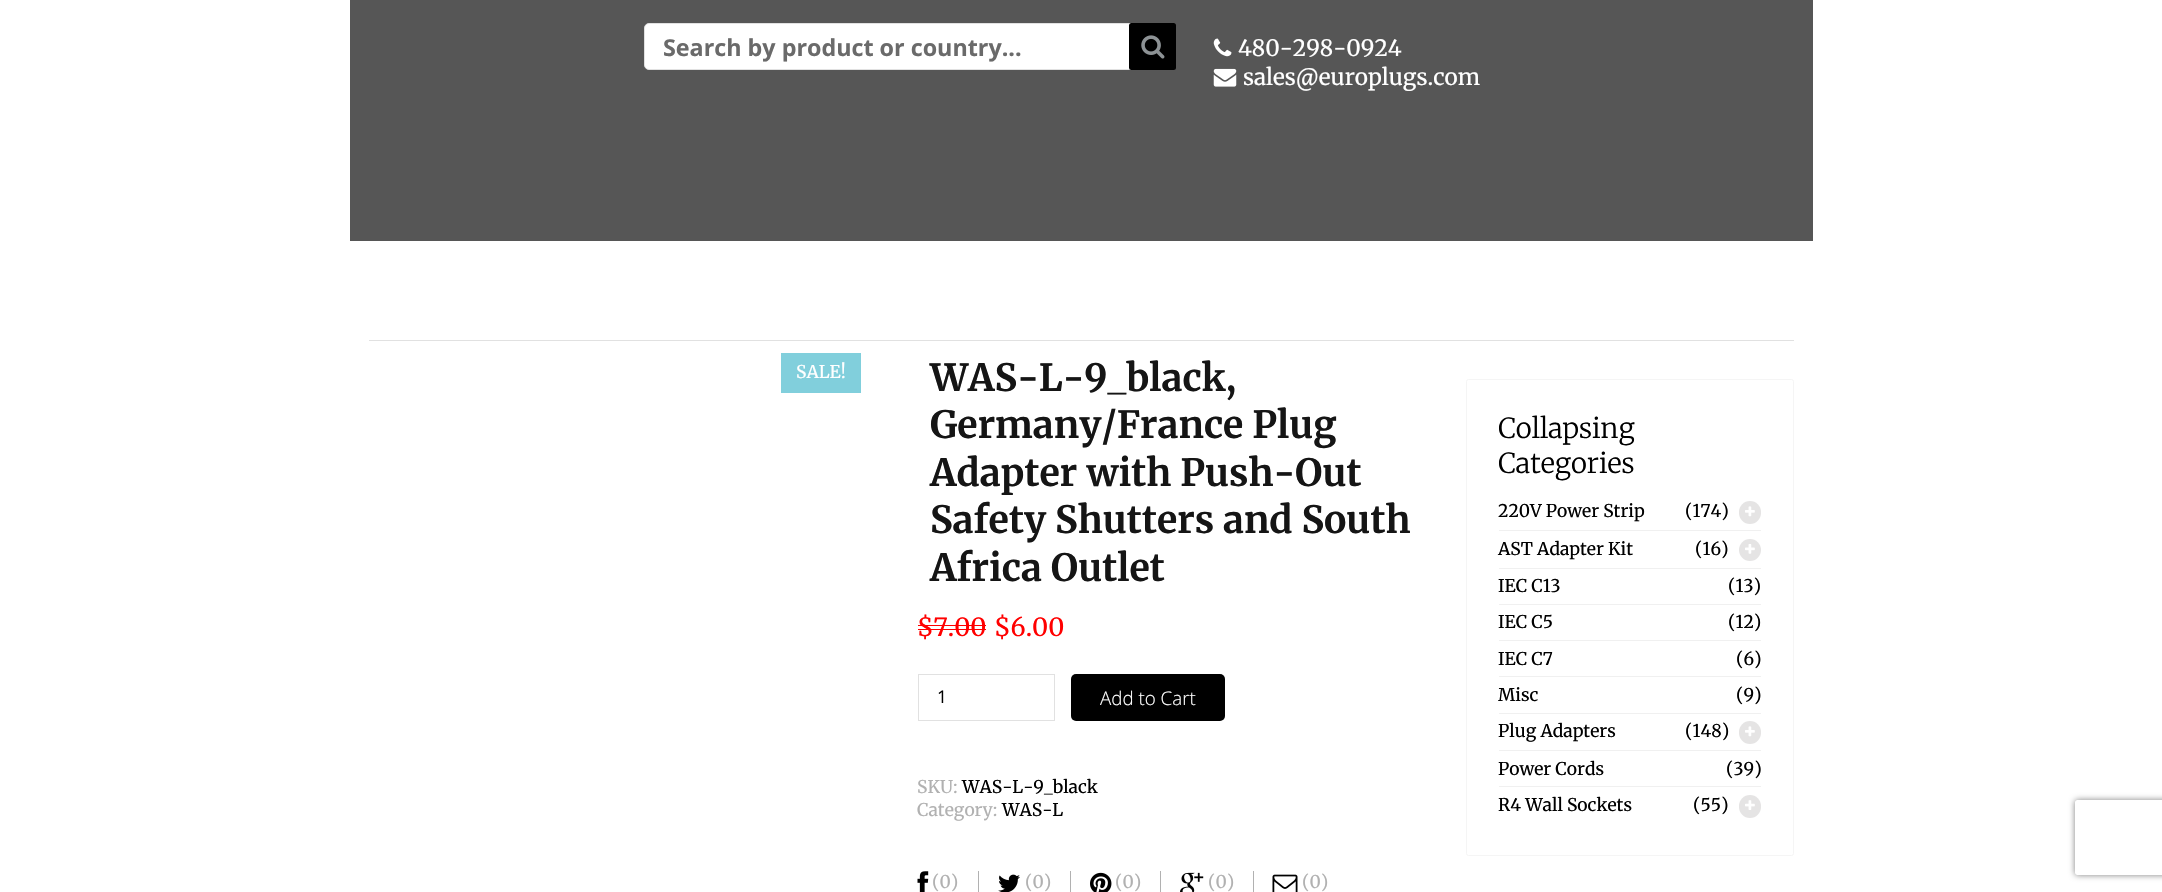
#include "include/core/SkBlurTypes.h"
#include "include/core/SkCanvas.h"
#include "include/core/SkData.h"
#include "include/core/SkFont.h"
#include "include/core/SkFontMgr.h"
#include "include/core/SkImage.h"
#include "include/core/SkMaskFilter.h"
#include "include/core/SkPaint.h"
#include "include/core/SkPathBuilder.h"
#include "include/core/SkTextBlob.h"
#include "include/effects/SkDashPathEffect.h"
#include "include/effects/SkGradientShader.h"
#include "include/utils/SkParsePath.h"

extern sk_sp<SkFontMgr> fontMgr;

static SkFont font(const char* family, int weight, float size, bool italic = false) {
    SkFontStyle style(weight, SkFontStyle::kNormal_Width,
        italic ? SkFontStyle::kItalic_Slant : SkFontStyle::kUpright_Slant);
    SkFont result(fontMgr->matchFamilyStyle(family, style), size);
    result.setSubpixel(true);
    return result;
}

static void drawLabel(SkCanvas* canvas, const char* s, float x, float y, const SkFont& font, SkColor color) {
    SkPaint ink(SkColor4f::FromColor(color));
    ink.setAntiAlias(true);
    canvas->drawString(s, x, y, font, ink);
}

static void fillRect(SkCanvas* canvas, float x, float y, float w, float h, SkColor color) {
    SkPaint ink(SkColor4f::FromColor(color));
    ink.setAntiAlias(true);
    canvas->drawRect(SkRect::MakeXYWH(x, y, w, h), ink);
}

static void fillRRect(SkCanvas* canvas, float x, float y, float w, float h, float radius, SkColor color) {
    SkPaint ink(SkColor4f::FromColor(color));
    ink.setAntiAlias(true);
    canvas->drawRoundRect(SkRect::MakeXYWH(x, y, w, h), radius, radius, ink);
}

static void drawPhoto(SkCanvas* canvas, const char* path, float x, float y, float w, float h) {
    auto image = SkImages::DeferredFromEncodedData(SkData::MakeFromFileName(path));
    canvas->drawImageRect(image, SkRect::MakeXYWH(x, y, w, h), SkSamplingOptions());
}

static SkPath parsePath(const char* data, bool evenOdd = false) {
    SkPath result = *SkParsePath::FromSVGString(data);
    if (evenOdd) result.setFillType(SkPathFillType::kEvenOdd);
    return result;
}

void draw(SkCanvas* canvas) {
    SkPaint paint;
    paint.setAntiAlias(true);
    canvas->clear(0xFFFFFFFF);
    fillRect(canvas, 350, 0, 1463, 241, 0xFF565656);
    paint.setColor(0xFFFFFFFF);
    canvas->drawRoundRect(SkRect::MakeXYWH(644.5f, 23.5f, 531, 46), 4.5f, 4.5f, paint);
    paint.setStroke(true);
    paint.setStrokeWidth(1);
    paint.setColor(0xFFE1E1E1);
    canvas->drawRoundRect(SkRect::MakeXYWH(644.5f, 23.5f, 531, 46), 4.5f, 4.5f, paint);
    SkFont font1 = font("Open Sans", 700, 23.3f);
    drawLabel(canvas, "Search by product or country...", 663, 56, font1, 0xFF6A6A6A);
    fillRRect(canvas, 1129, 23, 47, 47, 2.5f, 0xFF000000);
    drawPhoto(canvas, "assets/img1.png", 1141, 35, 24, 24);
    drawPhoto(canvas, "assets/img2.png", 1213, 38, 19, 19);
    SkFont font2 = font("Merriweather", 400, 22.5f);
    drawLabel(canvas, "480-298-0924", 1238, 56, font2, 0xFFFFFFFF);
    drawPhoto(canvas, "assets/img3.png", 1213, 68, 24, 19);
    drawLabel(canvas, "sales@europlugs.com", 1243, 85, font2, 0xFFFFFFFF);
    fillRect(canvas, 369, 340, 1425, 1, 0xFFE1E1E1);
    fillRect(canvas, 781, 353, 80, 40, 0xFF81CFDC);
    SkFont font3 = font("Merriweather", 400, 17.5f);
    drawLabel(canvas, "SALE!", 796, 378, font3, 0xFFFFFFFF);
    SkFont font4 = font("Merriweather", 700, 37.5f);
    drawLabel(canvas, "WAS-L-9_black,", 930, 391, font4, 0xFF151515);
    drawLabel(canvas, "Germany/France Plug", 930, 438, font4, 0xFF151515);
    drawLabel(canvas, "Adapter with Push-Out", 930, 486, font4, 0xFF151515);
    drawLabel(canvas, "Safety Shutters and South", 930, 533, font4, 0xFF151515);
    drawLabel(canvas, "Africa Outlet", 930, 581, font4, 0xFF151515);
    SkFont font5 = font("Merriweather", 400, 25);
    drawLabel(canvas, "$7.00", 917, 636, font5, 0xFFFF0000);
    fillRect(canvas, 918, 625, 68, 1, 0xFFFF0000);
    fillRect(canvas, 918, 629, 68, 1, 0xFFFF0000);
    drawLabel(canvas, "$6.00", 994, 636, font5, 0xFFFF0000);
    canvas->drawRect(SkRect::MakeXYWH(918.5f, 674.5f, 136, 46), paint);
    SkFont font6 = font("Open Sans", 400, 17.5f);
    drawLabel(canvas, "1", 937, 703, font6, 0xFF000000);
    fillRRect(canvas, 1071, 674, 154, 47, 5, 0xFF000000);
    SkFont font7 = font("Open Sans", 300, 18.75f);
    drawLabel(canvas, "Add to Cart", 1100, 705, font7, 0xFFFFFFFF);
    drawLabel(canvas, "SKU:", 917, 793, font3, 0xFFB1B1B1);
    drawLabel(canvas, "WAS-L-9_black", 962, 793, font3, 0xFF000000);
    drawLabel(canvas, "Category:", 917, 816, font3, 0xFFB1B1B1);
    drawLabel(canvas, "WAS-L", 1002, 816, font3, 0xFF000000);
    drawPhoto(canvas, "assets/img4.png", 917, 871, 12, 21);
    drawLabel(canvas, "(0)", 932, 888, font3, 0xFFB1B1B1);
    fillRect(canvas, 978, 871, 1, 21, 0xFFB1B1B1);
    drawPhoto(canvas, "assets/img5.png", 998, 874, 22, 18);
    drawLabel(canvas, "(0)", 1025, 888, font3, 0xFFB1B1B1);
    fillRect(canvas, 1070, 871, 1, 21, 0xFFB1B1B1);
    drawPhoto(canvas, "assets/img6.png", 1090, 872, 22, 20);
    drawLabel(canvas, "(0)", 1115, 888, font3, 0xFFB1B1B1);
    fillRect(canvas, 1160, 871, 1, 21, 0xFFB1B1B1);
    drawPhoto(canvas, "assets/img7.png", 1180, 872, 24, 20);
    drawLabel(canvas, "(0)", 1208, 888, font3, 0xFFB1B1B1);
    fillRect(canvas, 1253, 871, 1, 21, 0xFFB1B1B1);
    drawPhoto(canvas, "assets/img8.png", 1272, 874, 26, 18);
    drawLabel(canvas, "(0)", 1302, 888, font3, 0xFFB1B1B1);
    paint.setColor(0xFFF5F5F5);
    canvas->drawRoundRect(SkRect::MakeXYWH(1466.5f, 379.5f, 327, 476), 2, 2, paint);
    SkFont font8 = font("Merriweather", 300, 27.5f);
    drawLabel(canvas, "Collapsing", 1498, 438, font8, 0xFF000000);
    drawLabel(canvas, "Categories", 1498, 473, font8, 0xFF000000);
    fillRect(canvas, 1499, 530, 262, 1, 0xFFF0F0F0);
    drawLabel(canvas, "220V Power Strip", 1498, 517, font3, 0xFF000000);
    drawLabel(canvas, "(174)", 1685, 517, font3, 0xFF000000);
    fillRRect(canvas, 1739, 501, 22, 23, 11, 0xFFE5E4E4);
    drawPhoto(canvas, "assets/img9.png", 1745, 506, 10, 11);
    fillRect(canvas, 1499, 568, 262, 1, 0xFFF0F0F0);
    drawLabel(canvas, "AST Adapter Kit", 1498, 555, font3, 0xFF000000);
    drawLabel(canvas, "(16)", 1695, 555, font3, 0xFF000000);
    paint.setStroke(false);
    paint.setColor(0xFFE5E4E4);
    canvas->drawCircle(1750, 550, 11, paint);
    drawPhoto(canvas, "assets/img10.png", 1745, 544, 10, 10);
    fillRect(canvas, 1499, 604, 262, 1, 0xFFF0F0F0);
    drawLabel(canvas, "IEC C13", 1498, 592, font3, 0xFF000000);
    drawLabel(canvas, "(13)", 1728, 592, font3, 0xFF000000);
    fillRect(canvas, 1499, 640, 262, 1, 0xFFF0F0F0);
    drawLabel(canvas, "IEC C5", 1498, 628, font3, 0xFF000000);
    drawLabel(canvas, "(12)", 1728, 628, font3, 0xFF000000);
    fillRect(canvas, 1499, 676, 262, 1, 0xFFF0F0F0);
    drawLabel(canvas, "IEC C7", 1498, 665, font3, 0xFF000000);
    drawLabel(canvas, "(6)", 1736, 665, font3, 0xFF000000);
    fillRect(canvas, 1499, 713, 262, 1, 0xFFF0F0F0);
    drawLabel(canvas, "Misc", 1498, 701, font3, 0xFF000000);
    drawLabel(canvas, "(9)", 1736, 701, font3, 0xFF000000);
    fillRect(canvas, 1499, 750, 262, 1, 0xFFF0F0F0);
    drawLabel(canvas, "Plug Adapters", 1498, 737, font3, 0xFF000000);
    drawLabel(canvas, "(148)", 1685, 737, font3, 0xFF000000);
    fillRRect(canvas, 1739, 721, 22, 23, 11, 0xFFE5E4E4);
    drawPhoto(canvas, "assets/img9.png", 1745, 726, 10, 11);
    fillRect(canvas, 1499, 786, 262, 1, 0xFFF0F0F0);
    drawLabel(canvas, "Power Cords", 1498, 775, font3, 0xFF000000);
    drawLabel(canvas, "(39)", 1726, 775, font3, 0xFF000000);
    drawLabel(canvas, "R4 Wall Sockets", 1498, 811, font3, 0xFF000000);
    drawLabel(canvas, "(55)", 1693, 811, font3, 0xFF000000);
    fillRRect(canvas, 1739, 795, 22, 23, 11, 0xFFE5E4E4);
    drawPhoto(canvas, "assets/img11.png", 1745, 800, 10, 10);
    canvas->save();
    canvas->clipPath(parsePath("M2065 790H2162V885H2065ZM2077.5 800H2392.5C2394 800 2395 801 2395 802.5V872.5C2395 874 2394 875 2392.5 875H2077.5C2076 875 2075 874 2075 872.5V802.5C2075 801 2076 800 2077.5 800Z", true), true);
    paint.setColor(0xFF808080);
    paint.setMaskFilter(SkMaskFilter::MakeBlur(kNormal_SkBlurStyle, 3));
    canvas->drawRoundRect(SkRect::MakeXYWH(2075, 800, 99, 75), 2.5f, 2.5f, paint);
    paint.setMaskFilter(nullptr);
    canvas->restore();
}
